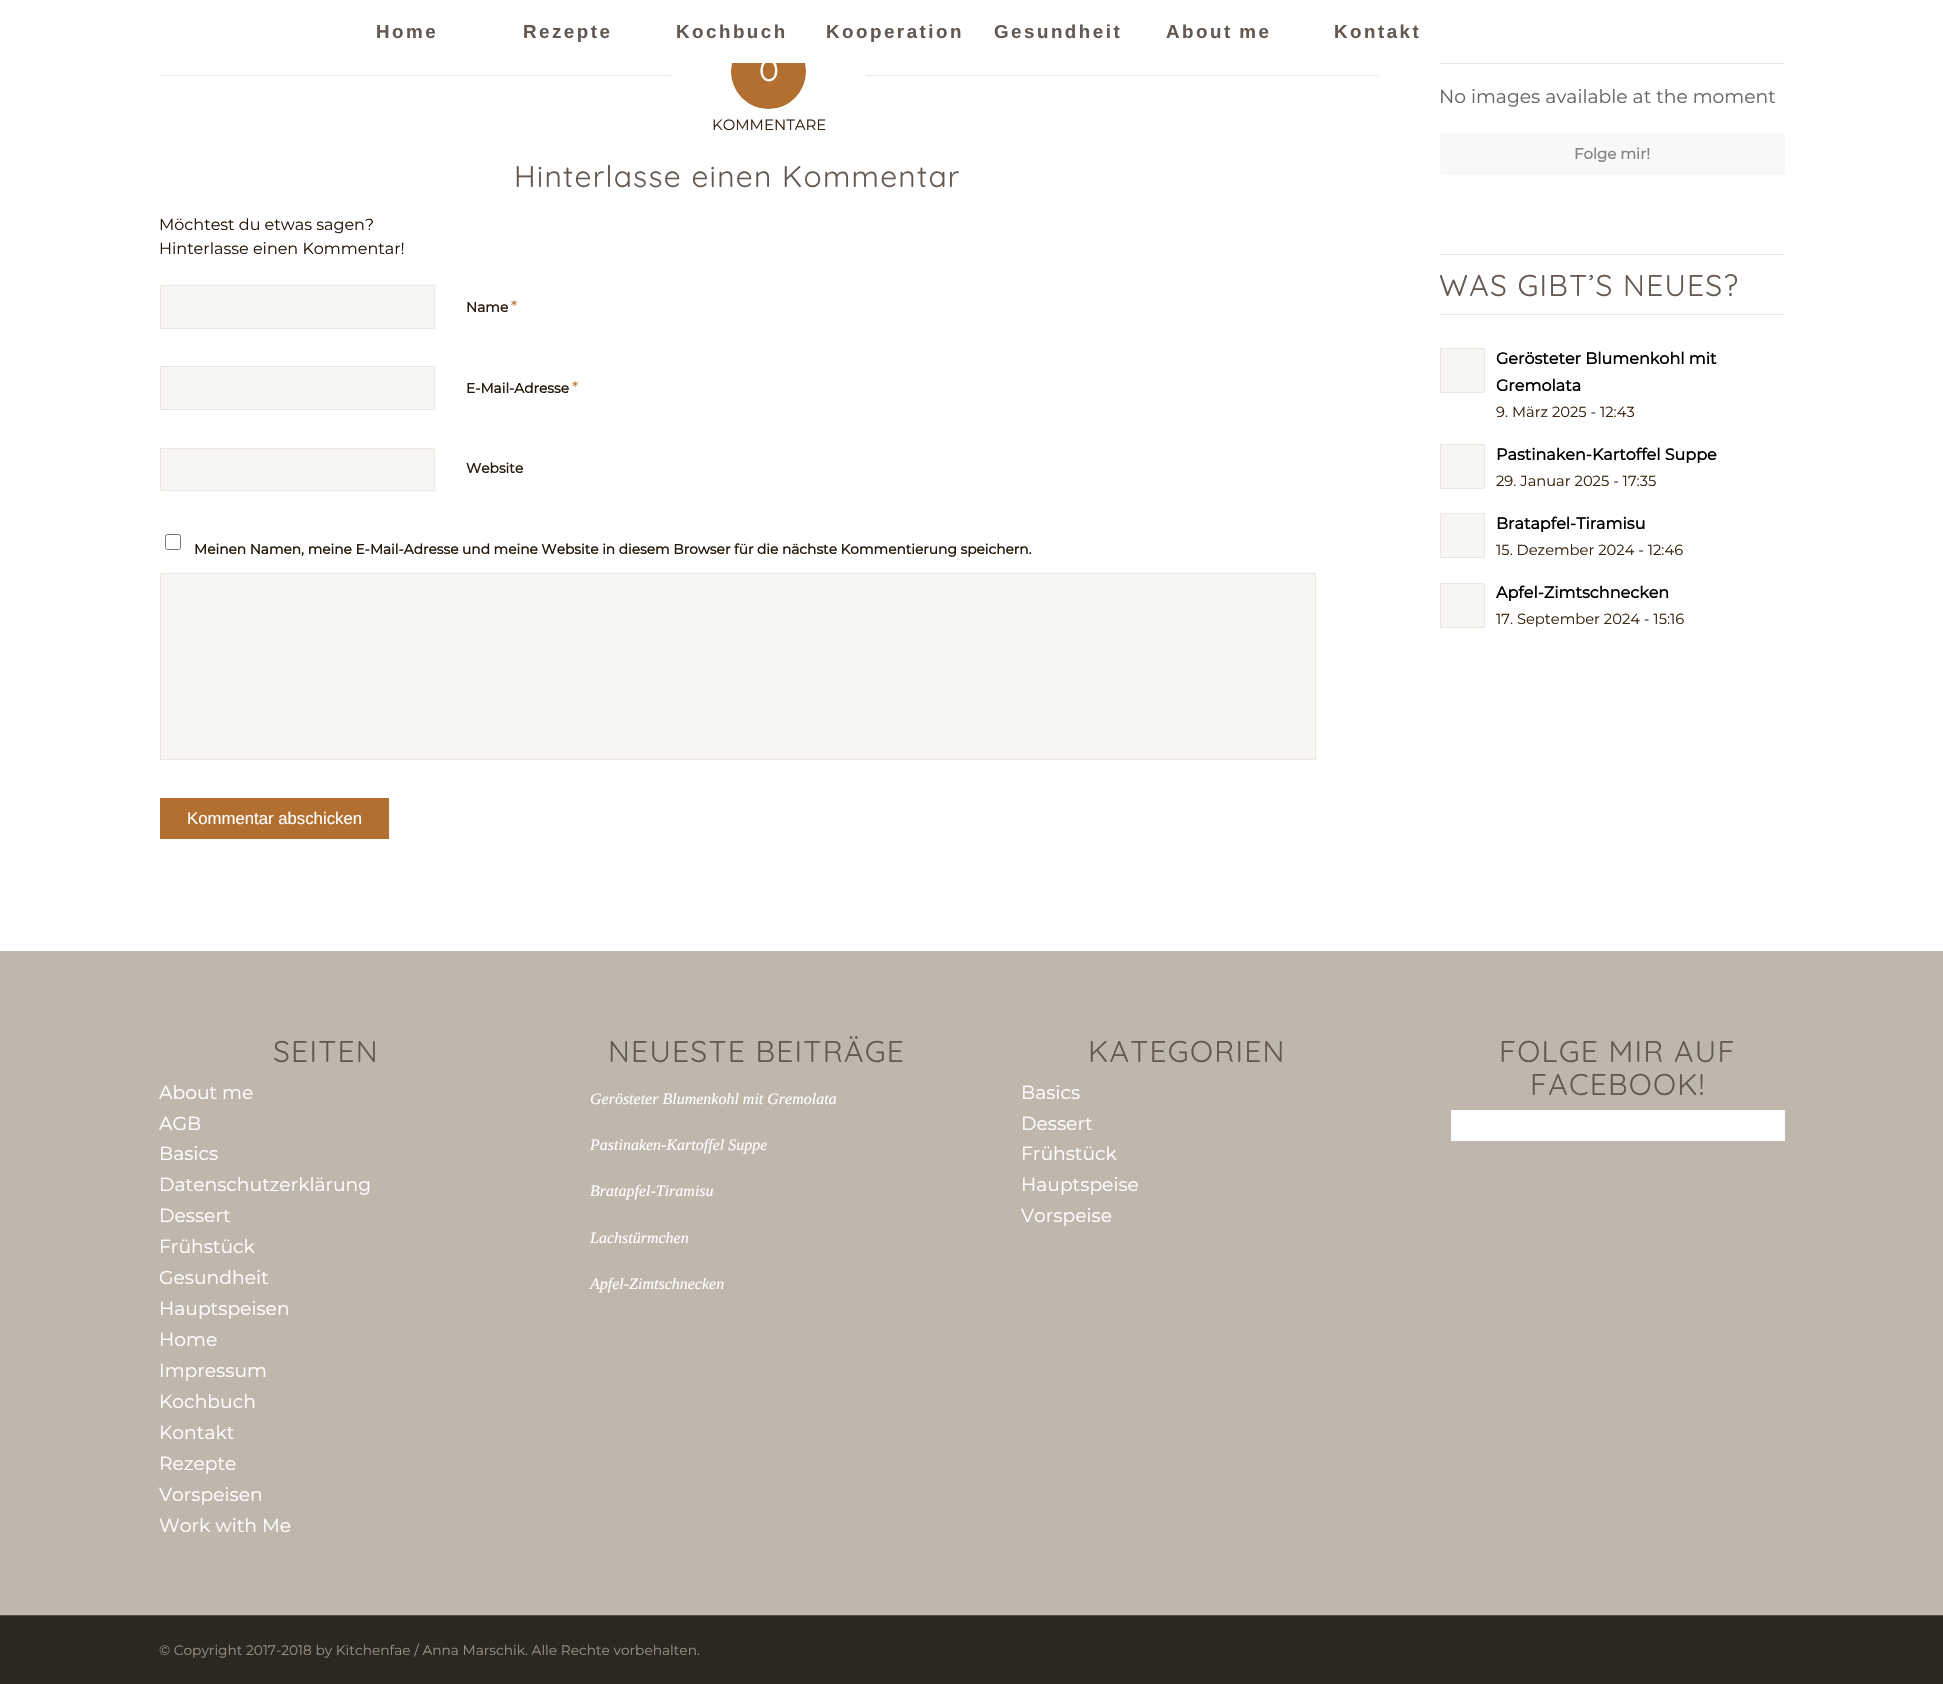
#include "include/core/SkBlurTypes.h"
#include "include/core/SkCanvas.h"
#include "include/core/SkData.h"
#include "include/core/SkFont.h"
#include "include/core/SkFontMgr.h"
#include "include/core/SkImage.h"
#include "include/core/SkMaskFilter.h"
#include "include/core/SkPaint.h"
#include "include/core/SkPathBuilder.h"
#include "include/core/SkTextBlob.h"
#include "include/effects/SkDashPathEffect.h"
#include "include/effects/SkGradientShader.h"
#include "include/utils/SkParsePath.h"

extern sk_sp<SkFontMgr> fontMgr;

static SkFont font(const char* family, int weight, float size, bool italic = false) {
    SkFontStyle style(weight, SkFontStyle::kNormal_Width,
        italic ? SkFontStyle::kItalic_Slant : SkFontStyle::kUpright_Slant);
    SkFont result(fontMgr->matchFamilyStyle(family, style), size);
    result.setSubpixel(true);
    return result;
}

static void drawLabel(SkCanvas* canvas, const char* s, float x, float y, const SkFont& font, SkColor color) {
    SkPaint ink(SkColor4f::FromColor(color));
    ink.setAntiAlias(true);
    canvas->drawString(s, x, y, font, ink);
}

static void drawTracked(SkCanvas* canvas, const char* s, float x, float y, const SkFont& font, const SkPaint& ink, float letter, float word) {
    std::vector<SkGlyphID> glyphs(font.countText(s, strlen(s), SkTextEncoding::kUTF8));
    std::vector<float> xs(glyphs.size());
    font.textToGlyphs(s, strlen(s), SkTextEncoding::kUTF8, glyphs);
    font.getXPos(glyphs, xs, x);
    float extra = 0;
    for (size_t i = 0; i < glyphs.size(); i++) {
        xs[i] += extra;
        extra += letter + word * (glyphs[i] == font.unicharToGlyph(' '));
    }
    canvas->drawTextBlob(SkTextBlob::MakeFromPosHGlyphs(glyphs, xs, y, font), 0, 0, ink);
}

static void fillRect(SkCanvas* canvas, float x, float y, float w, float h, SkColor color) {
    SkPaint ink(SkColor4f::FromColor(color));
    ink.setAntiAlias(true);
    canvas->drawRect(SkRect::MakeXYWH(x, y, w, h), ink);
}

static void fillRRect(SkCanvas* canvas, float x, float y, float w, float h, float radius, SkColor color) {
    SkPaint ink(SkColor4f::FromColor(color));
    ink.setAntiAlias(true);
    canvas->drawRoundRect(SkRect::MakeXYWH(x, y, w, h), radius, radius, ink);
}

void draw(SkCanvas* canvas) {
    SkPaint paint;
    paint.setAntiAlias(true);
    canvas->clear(0xFFFFFFFF);
    SkFont font1 = font("Liberation Sans", 700, 18.75f);
    paint.setColor(0xFF635952);
    drawTracked(canvas, "Home", 376, 38, font1, paint, 2.5f, 0);
    drawTracked(canvas, "Rezepte", 523, 38, font1, paint, 2.5f, 0);
    paint.setColor(0xFFB36F30);
    canvas->drawCircle(768.5f, 71.5f, 37.5f, paint);
    fillRect(canvas, 732, 34, 73, 29, 0xFFFFFFFF);
    paint.setColor(0xFF635952);
    drawTracked(canvas, "Kochbuch", 676, 38, font1, paint, 2.5f, 0);
    drawTracked(canvas, "Kooperation", 826, 38, font1, paint, 2.5f, 0);
    drawTracked(canvas, "Gesundheit", 994, 38, font1, paint, 2.5f, 0);
    drawTracked(canvas, "About me", 1166, 38, font1, paint, 2.5f, -1);
    drawTracked(canvas, "Kontakt", 1334, 38, font1, paint, 2.5f, 0);
    fillRect(canvas, 160, 75, 511, 1, 0xFFEBE8E2);
    SkFont font2 = font("Montserrat", 100, 30);
    drawLabel(canvas, "0", 759, 81, font2, 0xFFFFFFFF);
    fillRect(canvas, 866, 75, 513, 1, 0xFFEBE8E2);
    SkFont font3 = font("Montserrat", 100, 15);
    drawLabel(canvas, "KOMMENTARE", 712, 130, font3, 0xFF382410);
    SkFont font4 = font("Quicksand", 400, 30);
    drawTracked(canvas, "Hinterlasse einen Kommentar", 514, 187, font4, paint, 1.25f, 0);
    SkFont font5 = font("Montserrat", 100, 16);
    drawLabel(canvas, "Möchtest du etwas sagen?", 159, 230, font5, 0xFF26190B);
    drawLabel(canvas, "Hinterlasse einen Kommentar!", 159, 254, font5, 0xFF26190B);
    paint.setColor(0xFFF8F6F2);
    canvas->drawRect(SkRect::MakeXYWH(160.5f, 285.5f, 274, 43), paint);
    paint.setStroke(true);
    paint.setStrokeWidth(1);
    paint.setColor(0xFFEBE8E2);
    canvas->drawRect(SkRect::MakeXYWH(160.5f, 285.5f, 274, 43), paint);
    SkFont font6 = font("Montserrat", 700, 13.75f);
    drawLabel(canvas, "Name", 466, 312, font6, 0xFF26190B);
    drawLabel(canvas, "*", 511, 312, font5, 0xFFB36F30);
    paint.setStroke(false);
    paint.setColor(0xFFF8F6F2);
    canvas->drawRect(SkRect::MakeXYWH(160.5f, 366.5f, 274, 43), paint);
    paint.setStroke(true);
    paint.setColor(0xFFEBE8E2);
    canvas->drawRect(SkRect::MakeXYWH(160.5f, 366.5f, 274, 43), paint);
    drawLabel(canvas, "E-Mail-Adresse", 466, 393, font6, 0xFF26190B);
    drawLabel(canvas, "*", 572, 393, font5, 0xFFB36F30);
    paint.setStroke(false);
    paint.setColor(0xFFF8F6F2);
    canvas->drawRect(SkRect::MakeXYWH(160.5f, 448.5f, 274, 42), paint);
    paint.setStroke(true);
    paint.setColor(0xFFEBE8E2);
    canvas->drawRect(SkRect::MakeXYWH(160.5f, 448.5f, 274, 42), paint);
    drawLabel(canvas, "Website", 466, 473, font6, 0xFF26190B);
    paint.setColor(0xFF767676);
    canvas->drawRoundRect(SkRect::MakeXYWH(165.5f, 534.5f, 15, 15), 2, 2, paint);
    drawLabel(canvas, "Meinen Namen, meine E-Mail-Adresse und meine Website in diesem Browser für die nächste Kommentierung speichern.", 194, 554, font6, 0xFF26190B);
    paint.setStroke(false);
    paint.setColor(0xFFF8F6F2);
    canvas->drawRect(SkRect::MakeXYWH(160.5f, 573.5f, 1155, 186), paint);
    paint.setStroke(true);
    paint.setColor(0xFFEBE8E2);
    canvas->drawRect(SkRect::MakeXYWH(160.5f, 573.5f, 1155, 186), paint);
    fillRect(canvas, 160, 798, 229, 41, 0xFFB36F30);
    SkFont font7 = font("Liberation Sans", 400, 16.75f);
    drawLabel(canvas, "Kommentar abschicken", 187, 824, font7, 0xFFFFFFFF);
    fillRect(canvas, 1440, 63, 345, 1, 0xFFEBE8E2);
    SkFont font8 = font("Montserrat", 100, 18.75f);
    drawLabel(canvas, "No images available at the moment", 1439, 103, font8, 0xFF666666);
    fillRRect(canvas, 1440, 133, 345, 42, 4, 0xFFF8F8F8);
    SkFont font9 = font("Montserrat", 700, 15);
    drawLabel(canvas, "Folge mir!", 1574, 159, font9, 0xFF868686);
    fillRect(canvas, 1440, 254, 345, 1, 0xFFEBE8E2);
    fillRect(canvas, 1440, 314, 345, 1, 0xFFEBE8E2);
    paint.setStroke(false);
    paint.setColor(0xFF635952);
    drawTracked(canvas, "WAS GIBT’S NEUES?", 1439, 296, font4, paint, 1.25f, 0);
    paint.setColor(0xFFF8F6F2);
    canvas->drawRect(SkRect::MakeXYWH(1440.5f, 348.5f, 44, 44), paint);
    paint.setStroke(true);
    paint.setColor(0xFFEBE8E2);
    canvas->drawRect(SkRect::MakeXYWH(1440.5f, 348.5f, 44, 44), paint);
    SkFont font10 = font("Montserrat", 700, 16);
    drawLabel(canvas, "Gerösteter Blumenkohl mit", 1496, 364, font10, 0xFF000000);
    drawLabel(canvas, "Gremolata", 1496, 391, font10, 0xFF000000);
    SkFont font11 = font("Montserrat", 100, 14.7f);
    drawLabel(canvas, "9. März 2025 - 12:43", 1496, 417, font11, 0xFF382410);
    paint.setStroke(false);
    paint.setColor(0xFFF8F6F2);
    canvas->drawRect(SkRect::MakeXYWH(1440.5f, 444.5f, 44, 44), paint);
    paint.setStroke(true);
    paint.setColor(0xFFEBE8E2);
    canvas->drawRect(SkRect::MakeXYWH(1440.5f, 444.5f, 44, 44), paint);
    drawLabel(canvas, "Pastinaken-Kartoffel Suppe", 1496, 460, font10, 0xFF000000);
    drawLabel(canvas, "29. Januar 2025 - 17:35", 1496, 486, font11, 0xFF382410);
    paint.setStroke(false);
    paint.setColor(0xFFF8F6F2);
    canvas->drawRect(SkRect::MakeXYWH(1440.5f, 513.5f, 44, 44), paint);
    paint.setStroke(true);
    paint.setColor(0xFFEBE8E2);
    canvas->drawRect(SkRect::MakeXYWH(1440.5f, 513.5f, 44, 44), paint);
    drawLabel(canvas, "Bratapfel-Tiramisu", 1496, 529, font10, 0xFF000000);
    drawLabel(canvas, "15. Dezember 2024 - 12:46", 1496, 555, font11, 0xFF382410);
    paint.setStroke(false);
    paint.setColor(0xFFF8F6F2);
    canvas->drawRect(SkRect::MakeXYWH(1440.5f, 583.5f, 44, 44), paint);
    paint.setStroke(true);
    paint.setColor(0xFFEBE8E2);
    canvas->drawRect(SkRect::MakeXYWH(1440.5f, 583.5f, 44, 44), paint);
    drawLabel(canvas, "Apfel-Zimtschnecken", 1496, 598, font10, 0xFF000000);
    drawLabel(canvas, "17. September 2024 - 15:16", 1496, 624, font11, 0xFF382410);
    fillRect(canvas, 0, 951, 1943, 664, 0xFFBFB7AC);
    paint.setStroke(false);
    paint.setColor(0xFF635952);
    drawTracked(canvas, "SEITEN", 273, 1062, font4, paint, 1.25f, 0);
    drawLabel(canvas, "About me", 159, 1099, font8, 0xFFFFFFFF);
    drawLabel(canvas, "AGB", 159, 1130, font8, 0xFFFFFFFF);
    drawLabel(canvas, "Basics", 159, 1160, font8, 0xFFFFFFFF);
    drawLabel(canvas, "Datenschutzerklärung", 159, 1191, font8, 0xFFFFFFFF);
    drawLabel(canvas, "Dessert", 159, 1222, font8, 0xFFFFFFFF);
    drawLabel(canvas, "Frühstück", 159, 1253, font8, 0xFFFFFFFF);
    drawLabel(canvas, "Gesundheit", 159, 1284, font8, 0xFFFFFFFF);
    drawLabel(canvas, "Hauptspeisen", 159, 1315, font8, 0xFFFFFFFF);
    drawLabel(canvas, "Home", 159, 1346, font8, 0xFFFFFFFF);
    drawLabel(canvas, "Impressum", 159, 1377, font8, 0xFFFFFFFF);
    drawLabel(canvas, "Kochbuch", 159, 1408, font8, 0xFFFFFFFF);
    drawLabel(canvas, "Kontakt", 159, 1439, font8, 0xFFFFFFFF);
    drawLabel(canvas, "Rezepte", 159, 1470, font8, 0xFFFFFFFF);
    drawLabel(canvas, "Vorspeisen", 159, 1501, font8, 0xFFFFFFFF);
    drawLabel(canvas, "Work with Me", 159, 1532, font8, 0xFFFFFFFF);
    drawTracked(canvas, "NEUESTE BEITRÄGE", 608, 1062, font4, paint, 1.25f, 0);
    SkFont font12 = font("Liberation Serif", 400, 16, true);
    drawLabel(canvas, "Gerösteter Blumenkohl mit Gremolata", 590, 1104, font12, 0xFFFFFFFF);
    drawLabel(canvas, "Pastinaken-Kartoffel Suppe", 590, 1150, font12, 0xFFFFFFFF);
    drawLabel(canvas, "Bratapfel-Tiramisu", 590, 1196, font12, 0xFFFFFFFF);
    drawLabel(canvas, "Lachstürmchen", 590, 1243, font12, 0xFFFFFFFF);
    drawLabel(canvas, "Apfel-Zimtschnecken", 590, 1289, font12, 0xFFFFFFFF);
    drawTracked(canvas, "KATEGORIEN", 1088, 1062, font4, paint, 1.25f, 0);
    drawLabel(canvas, "Basics", 1021, 1099, font8, 0xFFFFFFFF);
    drawLabel(canvas, "Dessert", 1021, 1130, font8, 0xFFFFFFFF);
    drawLabel(canvas, "Frühstück", 1021, 1160, font8, 0xFFFFFFFF);
    drawLabel(canvas, "Hauptspeise", 1021, 1191, font8, 0xFFFFFFFF);
    drawLabel(canvas, "Vorspeise", 1021, 1222, font8, 0xFFFFFFFF);
    drawTracked(canvas, "FOLGE MIR AUF", 1499, 1062, font4, paint, 1.25f, 0);
    drawTracked(canvas, "FACEBOOK!", 1530, 1095, font4, paint, 1.25f, 0);
    fillRect(canvas, 1451, 1110, 334, 31, 0xFFFFFFFF);
    fillRect(canvas, 0, 1616, 1943, 68, 0xFF2B2822);
    fillRect(canvas, 0, 1615, 1943, 1, 0xFF575149);
    SkFont font13 = font("Montserrat", 100, 13.75f);
    drawLabel(canvas, "© Copyright 2017-2018 by Kitchenfae / Anna Marschik. Alle Rechte vorbehalten.", 159, 1655, font13, 0xFF988F81);
}
